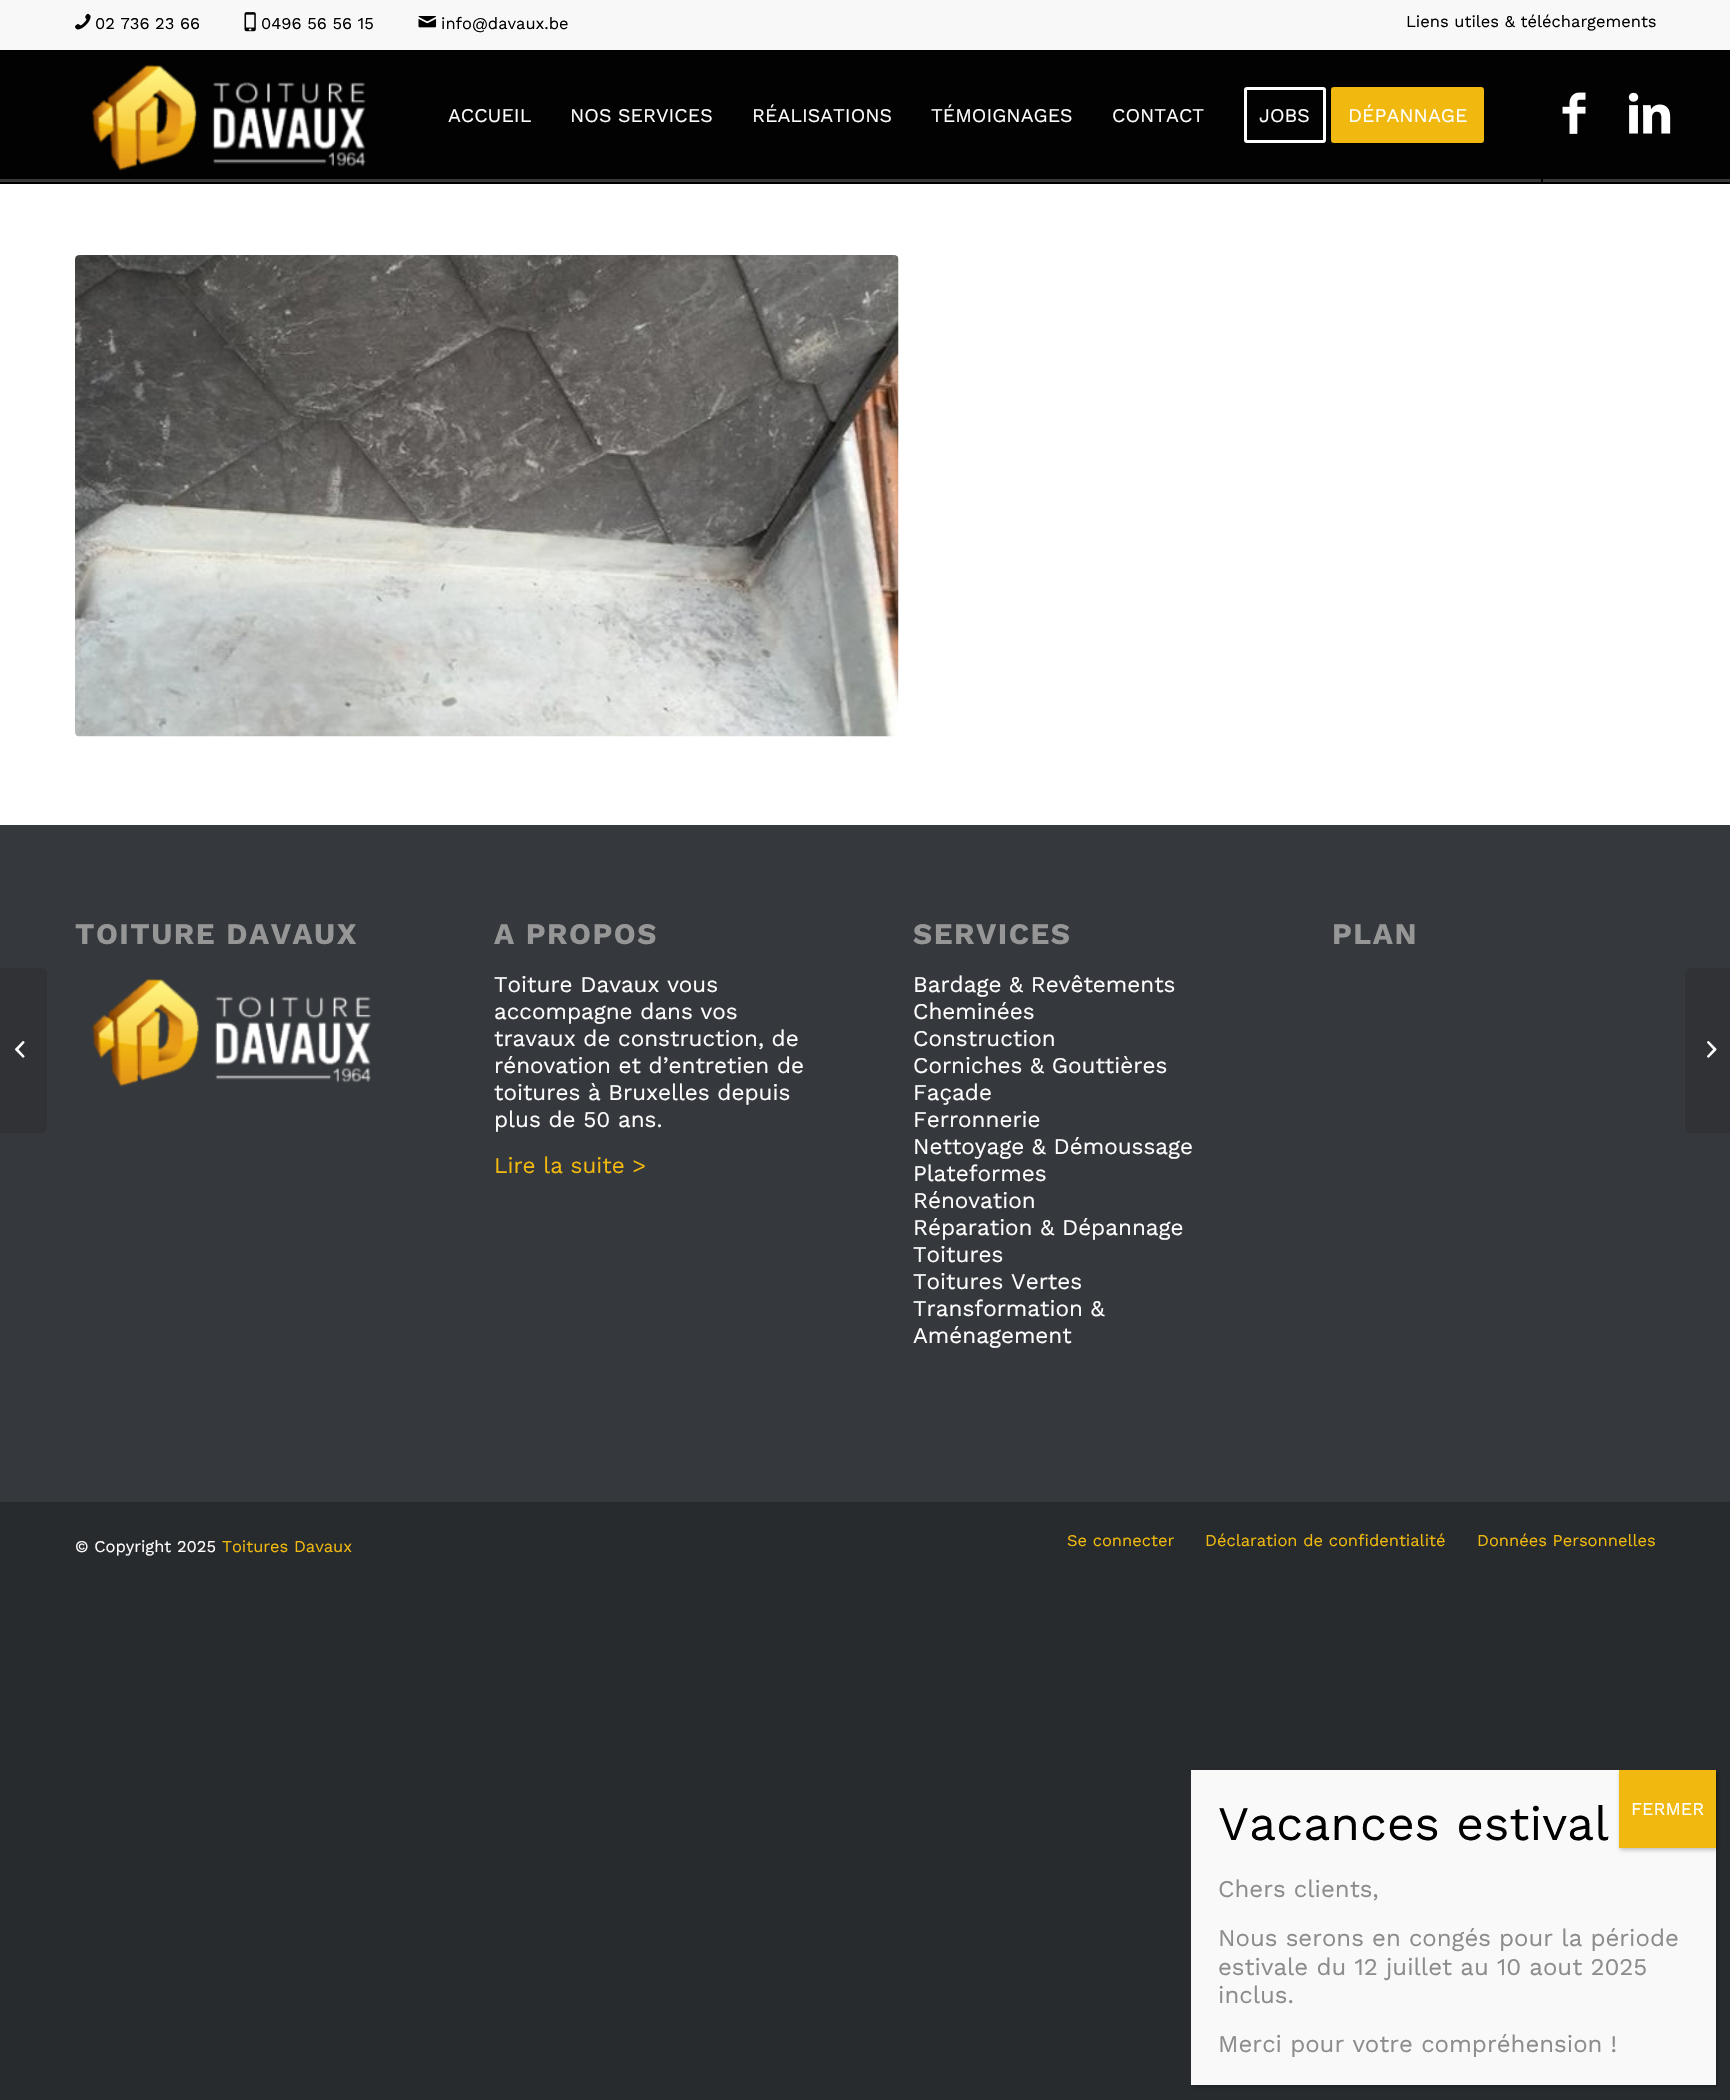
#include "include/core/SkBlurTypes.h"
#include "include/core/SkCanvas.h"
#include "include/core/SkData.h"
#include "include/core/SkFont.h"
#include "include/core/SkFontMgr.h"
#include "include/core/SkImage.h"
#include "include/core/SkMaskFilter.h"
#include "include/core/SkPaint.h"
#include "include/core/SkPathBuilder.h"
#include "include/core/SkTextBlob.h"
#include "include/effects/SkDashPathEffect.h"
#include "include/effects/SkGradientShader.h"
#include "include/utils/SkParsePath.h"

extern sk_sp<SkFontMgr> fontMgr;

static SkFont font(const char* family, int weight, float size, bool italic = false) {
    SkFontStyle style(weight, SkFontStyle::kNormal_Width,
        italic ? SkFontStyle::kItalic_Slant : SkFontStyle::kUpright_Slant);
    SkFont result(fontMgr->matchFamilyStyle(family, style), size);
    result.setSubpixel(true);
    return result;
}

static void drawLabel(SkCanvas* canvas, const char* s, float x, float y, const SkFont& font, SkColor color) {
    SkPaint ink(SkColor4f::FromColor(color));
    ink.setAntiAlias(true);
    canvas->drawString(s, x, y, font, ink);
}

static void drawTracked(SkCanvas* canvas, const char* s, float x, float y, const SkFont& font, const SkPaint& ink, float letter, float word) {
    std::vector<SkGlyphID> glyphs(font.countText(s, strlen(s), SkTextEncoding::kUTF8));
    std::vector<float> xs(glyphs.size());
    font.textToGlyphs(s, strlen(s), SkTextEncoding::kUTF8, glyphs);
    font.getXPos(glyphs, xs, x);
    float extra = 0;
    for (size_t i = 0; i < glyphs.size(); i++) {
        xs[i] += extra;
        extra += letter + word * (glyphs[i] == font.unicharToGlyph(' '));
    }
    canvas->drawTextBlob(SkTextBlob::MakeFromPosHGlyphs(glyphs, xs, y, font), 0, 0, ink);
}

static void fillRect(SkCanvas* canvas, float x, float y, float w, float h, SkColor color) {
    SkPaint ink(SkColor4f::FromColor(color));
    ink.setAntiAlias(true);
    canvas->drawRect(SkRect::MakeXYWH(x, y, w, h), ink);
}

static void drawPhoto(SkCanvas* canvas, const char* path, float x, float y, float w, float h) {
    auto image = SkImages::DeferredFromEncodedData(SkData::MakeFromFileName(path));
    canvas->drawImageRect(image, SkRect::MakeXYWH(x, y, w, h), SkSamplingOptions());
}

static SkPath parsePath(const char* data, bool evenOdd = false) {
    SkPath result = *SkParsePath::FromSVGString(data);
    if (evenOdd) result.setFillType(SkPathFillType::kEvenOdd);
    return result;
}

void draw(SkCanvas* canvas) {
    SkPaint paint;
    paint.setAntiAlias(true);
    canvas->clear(0xFF282B2E);
    fillRect(canvas, 0, 0, 1730, 50, 0xFFF8F8F8);
    drawPhoto(canvas, "assets/img1.png", 75, 13, 16, 17);
    SkFont font1 = font("Work Sans", 400, 16.5f);
    drawLabel(canvas, "02 736 23 66", 95, 29, font1, 0xFF000000);
    drawPhoto(canvas, "assets/img2.png", 244, 12, 12, 20);
    drawLabel(canvas, "0496 56 56 15", 261, 29, font1, 0xFF000000);
    drawPhoto(canvas, "assets/img3.png", 418, 16, 19, 12);
    drawLabel(canvas, "info@davaux.be", 441, 29, font1, 0xFF000000);
    drawLabel(canvas, "Liens utiles & téléchargements", 1406, 27, font1, 0xFF000000);
    fillRect(canvas, 0, 182, 1730, 2, 0xFF000000);
    fillRect(canvas, 0, 50, 1730, 129, 0xFF020202);
    drawPhoto(canvas, "assets/img4.png", 91, 64, 275, 107);
    fillRect(canvas, 0, 181, 1730, 1, 0xFF3D3D3D);
    fillRect(canvas, 0, 179, 1730, 2, 0xFF383838);
    fillRect(canvas, 1541, 179, 2, 3, 0xFF000000);
    SkFont font2 = font("Work Sans", 400, 19.5f);
    drawLabel(canvas, "ACCUEIL", 448, 122, font2, 0xFFFFFFFF);
    drawLabel(canvas, "NOS SERVICES", 570, 122, font2, 0xFFFFFFFF);
    drawLabel(canvas, "RÉALISATIONS", 752, 122, font2, 0xFFFFFFFF);
    drawLabel(canvas, "TÉMOIGNAGES", 931, 122, font2, 0xFFFFFFFF);
    drawLabel(canvas, "CONTACT", 1112, 122, font2, 0xFFFFFFFF);
    paint.setStroke(true);
    paint.setStrokeWidth(3);
    paint.setColor(0xFFFFFFFF);
    canvas->drawRoundRect(SkRect::MakeXYWH(1245.5f, 88.5f, 79, 53), 1.5f, 1.5f, paint);
    drawLabel(canvas, "JOBS", 1259, 122, font2, 0xFFFFFFFF);
    paint.setStroke(false);
    paint.setColor(0xFFF1B90F);
    canvas->drawRoundRect(SkRect::MakeXYWH(1332.5f, 88.5f, 150, 53), 1.5f, 1.5f, paint);
    paint.setStroke(true);
    canvas->drawRoundRect(SkRect::MakeXYWH(1332.5f, 88.5f, 150, 53), 1.5f, 1.5f, paint);
    drawLabel(canvas, "DÉPANNAGE", 1348, 122, font2, 0xFFFFFFFF);
    drawPhoto(canvas, "assets/img5.png", 1562, 92, 24, 42);
    drawPhoto(canvas, "assets/img6.png", 1628, 92, 43, 42);
    fillRect(canvas, 0, 825, 1730, 677, 0xFF35383C);
    paint.setStroke(false);
    paint.setColor(0xFF303236);
    canvas->drawPath(parsePath("M0 968H41C44.5 968 47 970.5 47 974V1127C47 1130.5 44.5 1133 41 1133H0Z"), paint);
    drawPhoto(canvas, "assets/img7.png", 15, 1041, 10, 17);
    fillRect(canvas, 0, 184, 1730, 641, 0xFFFFFFFF);
    drawPhoto(canvas, "assets/img8.png", 75, 255, 824, 482);
    SkFont font3 = font("Work Sans", 700, 29.75f);
    paint.setColor(0xFF969696);
    drawTracked(canvas, "TOITURE DAVAUX", 75, 944, font3, paint, 1.5f, 0);
    drawPhoto(canvas, "assets/img9.png", 92, 978, 279, 109);
    drawTracked(canvas, "A PROPOS", 494, 944, font3, paint, 1.5f, 0);
    SkFont font4 = font("Work Sans", 400, 22.5f);
    drawLabel(canvas, "Toiture Davaux vous", 494, 992, font4, 0xFFFFFFFF);
    drawLabel(canvas, "accompagne dans vos", 494, 1019, font4, 0xFFFFFFFF);
    drawLabel(canvas, "travaux de construction, de", 494, 1046, font4, 0xFFFFFFFF);
    drawLabel(canvas, "rénovation et d’entretien de", 494, 1073, font4, 0xFFFFFFFF);
    drawLabel(canvas, "toitures à Bruxelles depuis", 494, 1100, font4, 0xFFFFFFFF);
    drawLabel(canvas, "plus de 50 ans.", 494, 1127, font4, 0xFFFFFFFF);
    drawLabel(canvas, "Lire la suite >", 494, 1173, font4, 0xFFF1B90F);
    drawTracked(canvas, "SERVICES", 913, 944, font3, paint, 1.5f, 0);
    drawLabel(canvas, "Bardage & Revêtements", 913, 992, font4, 0xFFFFFFFF);
    drawLabel(canvas, "Cheminées", 913, 1019, font4, 0xFFFFFFFF);
    drawLabel(canvas, "Construction", 913, 1046, font4, 0xFFFFFFFF);
    drawLabel(canvas, "Corniches & Gouttières", 913, 1073, font4, 0xFFFFFFFF);
    drawLabel(canvas, "Façade", 913, 1100, font4, 0xFFFFFFFF);
    drawLabel(canvas, "Ferronnerie", 913, 1127, font4, 0xFFFFFFFF);
    drawLabel(canvas, "Nettoyage & Démoussage", 913, 1154, font4, 0xFFFFFFFF);
    drawLabel(canvas, "Plateformes", 913, 1181, font4, 0xFFFFFFFF);
    drawLabel(canvas, "Rénovation", 913, 1208, font4, 0xFFFFFFFF);
    drawLabel(canvas, "Réparation & Dépannage", 913, 1235, font4, 0xFFFFFFFF);
    drawLabel(canvas, "Toitures", 913, 1262, font4, 0xFFFFFFFF);
    drawLabel(canvas, "Toitures Vertes", 913, 1289, font4, 0xFFFFFFFF);
    drawLabel(canvas, "Transformation &", 913, 1316, font4, 0xFFFFFFFF);
    drawLabel(canvas, "Aménagement", 913, 1343, font4, 0xFFFFFFFF);
    drawTracked(canvas, "PLAN", 1332, 944, font3, paint, 1.5f, 0);
    drawLabel(canvas, "© Copyright 2025", 75, 1552, font1, 0xFFFFFFFF);
    drawLabel(canvas, "Toitures Davaux", 222, 1552, font1, 0xFFF1B90F);
    drawLabel(canvas, "Se connecter", 1067, 1546, font1, 0xFFF1B90F);
    drawLabel(canvas, "Déclaration de confidentialité", 1205, 1546, font1, 0xFFF1B90F);
    drawLabel(canvas, "Données Personnelles", 1477, 1546, font1, 0xFFF1B90F);
    paint.setColor(0xFF303236);
    canvas->drawPath(parsePath("M1691 968H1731V1133H1691C1687.5 1133 1685 1130.5 1685 1127V974C1685 970.5 1687.5 968 1691 968Z"), paint);
    drawPhoto(canvas, "assets/img10.png", 1707, 1041, 10, 17);
    paint.setColor(0x3B020202);
    paint.setMaskFilter(SkMaskFilter::MakeBlur(kNormal_SkBlurStyle, 2));
    canvas->drawRect(SkRect::MakeXYWH(1193, 1772, 525, 315), paint);
    paint.setMaskFilter(nullptr);
    fillRect(canvas, 1191, 1770, 525, 315, 0xFFF9F9F9);
    SkFont font5 = font("Work Sans", 400, 48);
    drawLabel(canvas, "Vacances estival", 1218, 1840, font5, 0xFF000000);
    paint.setMaskFilter(SkMaskFilter::MakeBlur(kNormal_SkBlurStyle, 2));
    canvas->drawRect(SkRect::MakeXYWH(1620, 1772, 98, 78), paint);
    paint.setMaskFilter(nullptr);
    fillRect(canvas, 1619, 1770, 97, 78, 0xFFF1B90F);
    SkFont font6 = font("Work Sans", 400, 18);
    drawLabel(canvas, "FERMER", 1631, 1815, font6, 0xFFFFFFFF);
    SkFont font7 = font("Work Sans", 400, 24);
    drawLabel(canvas, "Chers clients,", 1218, 1897, font7, 0xFF8C8C8C);
    drawLabel(canvas, "Nous serons en congés pour la période", 1218, 1946, font7, 0xFF8C8C8C);
    drawLabel(canvas, "estivale du 12 juillet au 10 aout 2025", 1218, 1975, font7, 0xFF8C8C8C);
    drawLabel(canvas, "inclus.", 1218, 2003, font7, 0xFF8C8C8C);
    drawLabel(canvas, "Merci pour votre compréhension !", 1218, 2052, font7, 0xFF8C8C8C);
}
